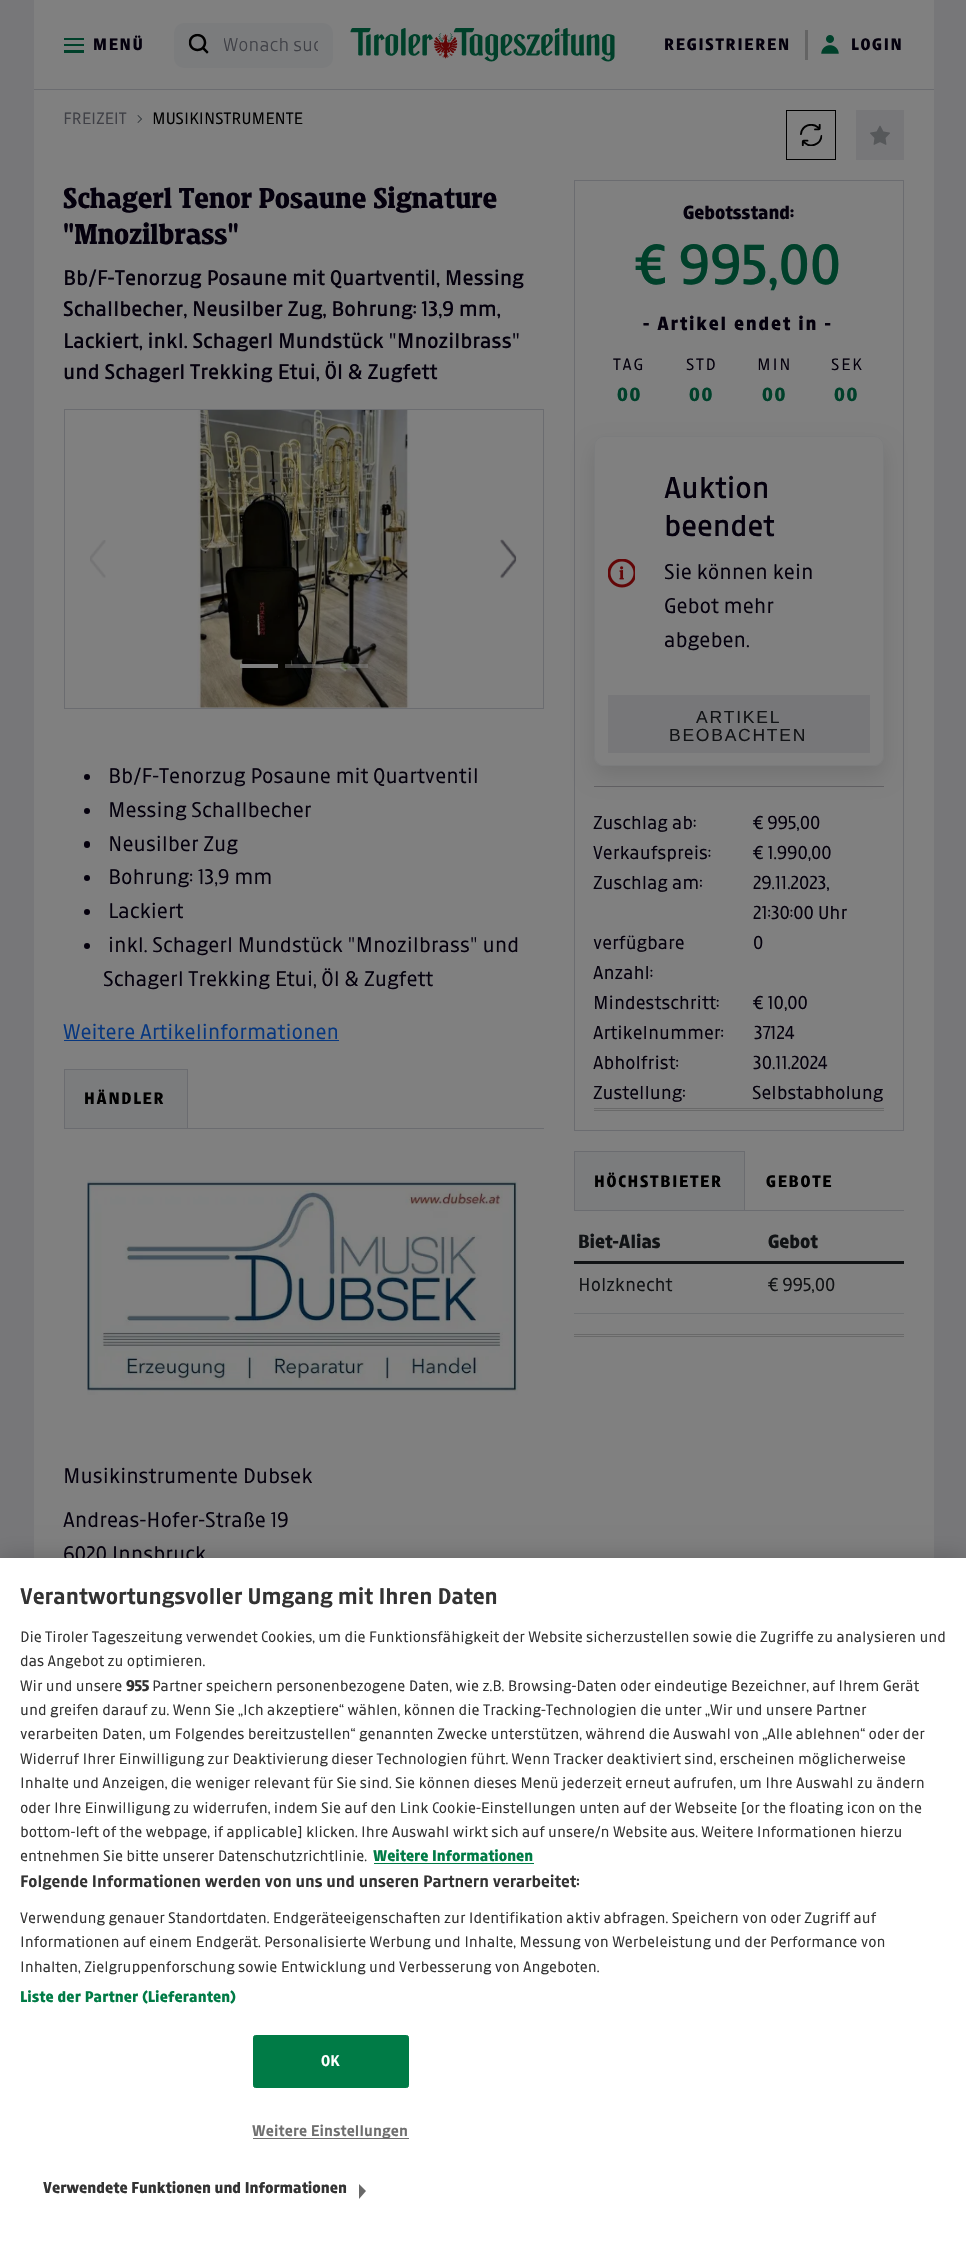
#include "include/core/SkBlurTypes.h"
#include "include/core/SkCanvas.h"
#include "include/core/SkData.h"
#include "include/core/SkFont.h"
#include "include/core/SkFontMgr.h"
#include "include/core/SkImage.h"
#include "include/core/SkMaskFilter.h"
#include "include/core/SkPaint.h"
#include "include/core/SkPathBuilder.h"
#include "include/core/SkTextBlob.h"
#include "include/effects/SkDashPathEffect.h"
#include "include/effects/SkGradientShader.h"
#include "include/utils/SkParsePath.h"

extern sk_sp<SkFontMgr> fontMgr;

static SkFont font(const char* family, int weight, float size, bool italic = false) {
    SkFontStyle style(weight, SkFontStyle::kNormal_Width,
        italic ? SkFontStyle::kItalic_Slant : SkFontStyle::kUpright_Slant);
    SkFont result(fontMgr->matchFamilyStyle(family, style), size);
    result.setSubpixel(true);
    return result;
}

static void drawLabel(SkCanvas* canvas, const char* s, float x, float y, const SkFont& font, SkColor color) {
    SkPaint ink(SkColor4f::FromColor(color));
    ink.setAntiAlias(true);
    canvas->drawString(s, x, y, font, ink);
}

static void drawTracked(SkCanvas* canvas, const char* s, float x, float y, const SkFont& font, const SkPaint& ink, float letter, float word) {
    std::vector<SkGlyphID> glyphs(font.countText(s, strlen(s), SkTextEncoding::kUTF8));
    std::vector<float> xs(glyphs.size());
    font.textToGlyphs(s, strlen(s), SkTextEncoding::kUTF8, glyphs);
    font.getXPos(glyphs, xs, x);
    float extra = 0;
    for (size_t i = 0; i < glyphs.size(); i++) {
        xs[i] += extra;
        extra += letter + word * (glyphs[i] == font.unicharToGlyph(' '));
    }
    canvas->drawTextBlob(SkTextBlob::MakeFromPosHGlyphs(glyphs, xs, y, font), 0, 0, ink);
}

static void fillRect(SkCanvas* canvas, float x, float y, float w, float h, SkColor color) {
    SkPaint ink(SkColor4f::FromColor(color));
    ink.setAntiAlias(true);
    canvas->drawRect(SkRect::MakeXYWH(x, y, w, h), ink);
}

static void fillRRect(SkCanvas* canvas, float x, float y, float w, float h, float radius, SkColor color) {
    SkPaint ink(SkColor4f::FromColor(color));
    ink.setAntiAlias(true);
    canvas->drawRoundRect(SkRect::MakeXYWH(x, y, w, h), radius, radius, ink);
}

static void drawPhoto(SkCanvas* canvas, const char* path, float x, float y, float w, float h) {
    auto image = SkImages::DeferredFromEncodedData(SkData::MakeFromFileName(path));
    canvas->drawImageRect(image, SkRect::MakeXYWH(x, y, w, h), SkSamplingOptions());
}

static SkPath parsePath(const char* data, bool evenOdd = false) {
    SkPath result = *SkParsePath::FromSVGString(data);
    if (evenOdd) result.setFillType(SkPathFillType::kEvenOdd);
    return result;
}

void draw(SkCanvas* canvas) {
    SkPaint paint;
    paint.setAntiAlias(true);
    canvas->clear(0xFF777779);
    fillRect(canvas, 34, 0, 900, 89, 0xFF808080);
    fillRect(canvas, 34, 89, 900, 1, 0xFF6B6C70);
    fillRect(canvas, 64, 50, 20, 3, 0xFF00402A);
    fillRect(canvas, 64, 44, 20, 2, 0xFF00402A);
    fillRect(canvas, 64, 38, 20, 2, 0xFF00402A);
    SkFont font1 = font("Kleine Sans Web", 700, 17.5f);
    paint.setColor(0xFF04000D);
    drawTracked(canvas, "MENÜ", 93, 50, font1, paint, 1.75f, 0);
    fillRRect(canvas, 174, 23, 159, 45, 10, 0xFF7B7C7D);
    drawPhoto(canvas, "assets/img1.png", 188, 33, 21, 21);
    canvas->save();
    canvas->clipRect(SkRect::MakeXYWH(224, 36, 94, 18));
    SkFont font2 = font("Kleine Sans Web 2", 300, 20);
    drawLabel(canvas, "Wonach suc", 223, 51, font2, 0xFF3F4046);
    canvas->restore();
    drawPhoto(canvas, "assets/img2.png", 350, 28, 265, 34);
    drawTracked(canvas, "REGISTRIEREN", 664, 50, font1, paint, 1.75f, 0);
    fillRect(canvas, 805, 30, 3, 30, 0xFF646464);
    drawPhoto(canvas, "assets/img3.png", 821, 35, 18, 19);
    drawTracked(canvas, "LOGIN", 851, 50, font1, paint, 1.75f, 0);
    fillRect(canvas, 34, 90, 900, 1468, 0xFF808080);
    SkFont font3 = font("Kleine Sans Web", 300, 17.5f);
    drawLabel(canvas, "FREIZEIT", 63, 124, font3, 0xFF3F4046);
    drawLabel(canvas, ">", 137, 124, font3, 0xFF363B3F);
    drawLabel(canvas, "MUSIKINSTRUMENTE", 152, 124, font3, 0xFF000000);
    paint.setStroke(true);
    paint.setStrokeWidth(1);
    paint.setColor(0xFF000000);
    canvas->drawRect(SkRect::MakeXYWH(786.5f, 110.5f, 49, 49), paint);
    drawPhoto(canvas, "assets/img4.png", 800, 124, 23, 22);
    fillRect(canvas, 856, 110, 48, 50, 0xFF777779);
    drawPhoto(canvas, "assets/img5.png", 870, 125, 20, 20);
    SkFont font4 = font("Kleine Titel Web", 700, 30);
    drawLabel(canvas, "Schagerl Tenor Posaune Signature", 63, 208, font4, 0xFF04000D);
    drawLabel(canvas, "\"Mnozilbrass\"", 63, 244, font4, 0xFF04000D);
    SkFont font5 = font("Kleine Sans Web", 400, 22.5f);
    drawLabel(canvas, "Bb/F-Tenorzug Posaune mit Quartventil, Messing", 63, 285, font5, 0xFF04000D);
    drawLabel(canvas, "Schallbecher, Neusilber Zug, Bohrung: 13,9 mm,", 63, 316, font5, 0xFF04000D);
    drawLabel(canvas, "Lackiert, inkl. Schagerl Mundstück \"Mnozilbrass\"", 63, 348, font5, 0xFF04000D);
    drawLabel(canvas, "und Schagerl Trekking Etui, Öl & Zugfett", 63, 379, font5, 0xFF04000D);
    paint.setColor(0xFF6B6C70);
    canvas->drawRect(SkRect::MakeXYWH(64.5f, 409.5f, 479, 299), paint);
    drawPhoto(canvas, "assets/img6.png", 90, 540, 16, 38);
    drawPhoto(canvas, "assets/img7.png", 197, 410, 213, 298);
    drawPhoto(canvas, "assets/img8.png", 500, 539, 17, 40);
    fillRect(canvas, 240, 664, 38, 4, 0xFF808080);
    fillRect(canvas, 285, 664, 38, 4, 0x80808080);
    fillRect(canvas, 330, 664, 38, 4, 0x80808080);
    paint.setStroke(false);
    paint.setColor(0xFF04000D);
    canvas->drawCircle(87, 777, 3, paint);
    SkFont font6 = font("Kleine Sans Web", 300, 22.5f);
    drawLabel(canvas, "Bb/F-Tenorzug Posaune mit Quartventil", 108, 783, font6, 0xFF04000D);
    canvas->drawCircle(87, 811, 3, paint);
    drawLabel(canvas, "Messing Schallbecher", 108, 817, font6, 0xFF04000D);
    fillRRect(canvas, 84, 841, 6, 7, 3, 0xFF04000D);
    drawLabel(canvas, "Neusilber Zug", 108, 851, font6, 0xFF04000D);
    canvas->drawCircle(87, 878, 3, paint);
    drawLabel(canvas, "Bohrung: 13,9 mm", 108, 884, font6, 0xFF04000D);
    canvas->drawCircle(87, 912, 3, paint);
    drawLabel(canvas, "Lackiert", 108, 918, font6, 0xFF04000D);
    canvas->drawCircle(87, 946, 3, paint);
    drawLabel(canvas, "inkl. Schagerl Mundstück \"Mnozilbrass\" und", 108, 952, font6, 0xFF04000D);
    drawLabel(canvas, "Schagerl Trekking Etui, Öl & Zugfett", 103, 986, font6, 0xFF04000D);
    drawLabel(canvas, "Weitere Artikelinformationen", 63, 1039, font6, 0xFF07377F);
    fillRect(canvas, 64, 1040, 275, 1, 0xFF07377F);
    fillRect(canvas, 188, 1128, 356, 1, 0xFF6B6C70);
    paint.setColor(0xFF7B7C7D);
    canvas->drawRect(SkRect::MakeXYWH(64.5f, 1069.5f, 123, 59), paint);
    paint.setStroke(true);
    paint.setColor(0xFF6B6C70);
    canvas->drawRect(SkRect::MakeXYWH(64.5f, 1069.5f, 123, 59), paint);
    paint.setStroke(false);
    paint.setColor(0xFF000000);
    drawTracked(canvas, "HÄNDLER", 84, 1104, font1, paint, 1.75f, 0);
    drawPhoto(canvas, "assets/img9.png", 87, 1180, 431, 215);
    drawLabel(canvas, "Musikinstrumente Dubsek", 63, 1483, font6, 0xFF04000D);
    drawLabel(canvas, "Andreas-Hofer-Straße 19", 63, 1527, font6, 0xFF04000D);
    drawLabel(canvas, "6020 Innsbruck", 63, 1561, font6, 0xFF04000D);
    paint.setStroke(true);
    paint.setColor(0xFF6B6C70);
    canvas->drawRect(SkRect::MakeXYWH(574.5f, 180.5f, 329, 950), paint);
    SkFont font7 = font("Kleine Sans Web", 700, 20);
    drawLabel(canvas, "Gebotsstand:", 683, 219, font7, 0xFF04000D);
    SkFont font8 = font("Kleine Sans Web", 400, 60);
    drawLabel(canvas, "€ 995,00", 635, 284, font8, 0xFF00402A);
    paint.setStroke(false);
    paint.setColor(0xFF04000D);
    drawTracked(canvas, "- Artikel endet in -", 643, 330, font7, paint, 1.75f, 0);
    drawTracked(canvas, "TAG", 613, 370, font3, paint, 1.75f, 0);
    drawTracked(canvas, "STD", 686, 370, font3, paint, 1.75f, 0);
    drawTracked(canvas, "MIN", 757, 370, font3, paint, 1.75f, 0);
    drawTracked(canvas, "SEK", 831, 370, font3, paint, 1.75f, 0);
    paint.setColor(0xFF00402A);
    drawTracked(canvas, "00", 617, 401, font7, paint, 1.75f, 0);
    drawTracked(canvas, "00", 689, 401, font7, paint, 1.75f, 0);
    drawTracked(canvas, "00", 762, 401, font7, paint, 1.75f, 0);
    drawTracked(canvas, "00", 834, 401, font7, paint, 1.75f, 0);
    canvas->save();
    canvas->clipPath(parsePath("M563 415H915V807H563ZM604 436H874C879.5 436 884 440.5 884 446V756C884 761.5 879.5 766 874 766H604C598.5 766 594 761.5 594 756V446C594 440.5 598.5 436 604 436Z", true), true);
    paint.setColor(0x1A000000);
    paint.setMaskFilter(SkMaskFilter::MakeBlur(kNormal_SkBlurStyle, 10));
    canvas->drawRoundRect(SkRect::MakeXYWH(594, 446, 290, 330), 10, 10, paint);
    paint.setMaskFilter(nullptr);
    canvas->restore();
    paint.setStroke(true);
    paint.setColor(0xFF7B7C7D);
    canvas->drawRoundRect(SkRect::MakeXYWH(594.5f, 436.5f, 289, 329), 9.5f, 9.5f, paint);
    drawPhoto(canvas, "assets/img10.png", 608, 559, 27, 29);
    SkFont font9 = font("Kleine Sans Web", 400, 32);
    drawLabel(canvas, "Auktion", 664, 498, font9, 0xFF04000D);
    drawLabel(canvas, "beendet", 664, 536, font9, 0xFF04000D);
    drawLabel(canvas, "Sie können kein", 664, 579, font6, 0xFF04000D);
    drawLabel(canvas, "Gebot mehr", 664, 613, font6, 0xFF04000D);
    drawLabel(canvas, "abgeben.", 664, 647, font6, 0xFF04000D);
    fillRect(canvas, 608, 695, 262, 58, 0xFF777779);
    SkFont font10 = font("Liberation Sans", 400, 17.5f);
    paint.setStroke(false);
    paint.setColor(0xFF111315);
    drawTracked(canvas, "ARTIKEL", 696, 723, font10, paint, 1.75f, 0);
    drawTracked(canvas, "BEOBACHTEN", 669, 741, font10, paint, 1.75f, 0);
    fillRect(canvas, 594, 1108, 290, 1, 0xFF696969);
    fillRect(canvas, 594, 1110, 290, 1, 0xFF696969);
    fillRect(canvas, 594, 786, 290, 1, 0xFF605F62);
    SkFont font11 = font("Kleine Sans Web", 300, 20);
    drawLabel(canvas, "Zuschlag ab:", 593, 829, font11, 0xFF04000D);
    drawLabel(canvas, "€ 995,00", 753, 829, font11, 0xFF04000D);
    drawLabel(canvas, "Verkaufspreis:", 593, 859, font11, 0xFF04000D);
    drawLabel(canvas, "€ 1.990,00", 753, 859, font11, 0xFF04000D);
    drawLabel(canvas, "Zuschlag am:", 593, 889, font11, 0xFF04000D);
    drawLabel(canvas, "29.11.2023,", 753, 889, font11, 0xFF04000D);
    drawLabel(canvas, "21:30:00 Uhr", 753, 919, font11, 0xFF04000D);
    drawLabel(canvas, "verfügbare", 593, 949, font11, 0xFF04000D);
    drawLabel(canvas, "Anzahl:", 593, 979, font11, 0xFF04000D);
    drawLabel(canvas, "0", 753, 949, font11, 0xFF04000D);
    drawLabel(canvas, "Mindestschritt:", 593, 1009, font11, 0xFF04000D);
    drawLabel(canvas, "€ 10,00", 753, 1009, font11, 0xFF04000D);
    drawLabel(canvas, "Artikelnummer:", 593, 1039, font11, 0xFF04000D);
    drawLabel(canvas, "37124", 754, 1039, font11, 0xFF04000D);
    drawLabel(canvas, "Abholfrist:", 593, 1069, font11, 0xFF04000D);
    drawLabel(canvas, "30.11.2024", 753, 1069, font11, 0xFF04000D);
    drawLabel(canvas, "Zustellung:", 593, 1099, font11, 0xFF04000D);
    drawLabel(canvas, "Selbstabholung", 752, 1099, font11, 0xFF04000D);
    fillRect(canvas, 745, 1210, 159, 1, 0xFF6B6C70);
    paint.setColor(0xFF7B7C7D);
    canvas->drawRect(SkRect::MakeXYWH(574.5f, 1151.5f, 170, 59), paint);
    paint.setStroke(true);
    paint.setColor(0xFF6B6C70);
    canvas->drawRect(SkRect::MakeXYWH(574.5f, 1151.5f, 170, 59), paint);
    paint.setStroke(false);
    paint.setColor(0xFF000000);
    drawTracked(canvas, "HÖCHSTBIETER", 594, 1187, font1, paint, 1.75f, 0);
    drawTracked(canvas, "GEBOTE", 766, 1187, font1, paint, 1.75f, 0);
    fillRect(canvas, 574, 1334, 330, 1, 0xFF696969);
    fillRect(canvas, 574, 1336, 330, 1, 0xFF696969);
    drawLabel(canvas, "Biet-Alias", 578, 1248, font7, 0xFF111315);
    drawLabel(canvas, "Gebot", 768, 1248, font7, 0xFF111315);
    fillRect(canvas, 574, 1261, 330, 3, 0xFF111315);
    drawLabel(canvas, "Holzknecht", 578, 1291, font11, 0xFF111315);
    fillRect(canvas, 574, 1313, 330, 1, 0xFF6F7173);
    drawLabel(canvas, "€ 995,00", 768, 1291, font11, 0xFF111315);
    paint.setColor(0x33000000);
    paint.setMaskFilter(SkMaskFilter::MakeBlur(kNormal_SkBlurStyle, 11));
    canvas->drawRect(SkRect::MakeXYWH(0, 1558, 966, 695), paint);
    paint.setMaskFilter(nullptr);
    fillRect(canvas, 0, 1558, 966, 694, 0xFFFFFFFF);
    SkFont font12 = font("Kleine Sans Web", 500, 24);
    drawLabel(canvas, "Verantwortungsvoller Umgang mit Ihren Daten", 20, 1604, font12, 0xFF333333);
    SkFont font13 = font("Kleine Sans Web", 300, 16.25f);
    drawLabel(canvas, "Die Tiroler Tageszeitung verwendet Cookies, um die Funktionsfähigkeit der Website sicherzustellen sowie die Zugriffe zu analysieren und", 20, 1642, font13, 0xFF333333);
    drawLabel(canvas, "das Angebot zu optimieren.", 20, 1666, font13, 0xFF333333);
    drawLabel(canvas, "Wir und unsere", 20, 1691, font13, 0xFF333333);
    SkFont font14 = font("Kleine Sans Web", 700, 16.25f);
    drawLabel(canvas, "955", 126, 1691, font14, 0xFF333333);
    drawLabel(canvas, "Partner speichern personenbezogene Daten, wie z.B. Browsing-Daten oder eindeutige Bezeichner, auf Ihrem Gerät", 152, 1691, font13, 0xFF333333);
    drawLabel(canvas, "und greifen darauf zu. Wenn Sie „Ich akzeptiere“ wählen, können die Tracking-Technologien die unter „Wir und unsere Partner", 20, 1715, font13, 0xFF333333);
    drawLabel(canvas, "verarbeiten Daten, um Folgendes bereitzustellen“ genannten Zwecke unterstützen, während die Auswahl von „Alle ablehnen“ oder der", 20, 1739, font13, 0xFF333333);
    drawLabel(canvas, "Widerruf Ihrer Einwilligung zur Deaktivierung dieser Technologien führt. Wenn Tracker deaktiviert sind, erscheinen möglicherweise", 20, 1764, font13, 0xFF333333);
    drawLabel(canvas, "Inhalte und Anzeigen, die weniger relevant für Sie sind. Sie können dieses Menü jederzeit erneut aufrufen, um Ihre Auswahl zu ändern", 20, 1788, font13, 0xFF333333);
    drawLabel(canvas, "oder Ihre Einwilligung zu widerrufen, indem Sie auf den Link Cookie-Einstellungen unten auf der Webseite [or the floating icon on the", 20, 1813, font13, 0xFF333333);
    drawLabel(canvas, "bottom-left of the webpage, if applicable] klicken. Ihre Auswahl wirkt sich auf unsere/n Website aus. Weitere Informationen hierzu", 20, 1837, font13, 0xFF333333);
    drawLabel(canvas, "entnehmen Sie bitte unserer Datenschutzrichtlinie.", 20, 1861, font13, 0xFF333333);
    drawLabel(canvas, "Weitere Informationen", 373, 1861, font14, 0xFF007B46);
    fillRect(canvas, 374, 1863, 160, 1, 0xFF007B46);
    SkFont font15 = font("Kleine Sans Web", 500, 17.6f);
    drawLabel(canvas, "Folgende Informationen werden von uns und unseren Partnern verarbeitet:", 20, 1887, font15, 0xFF333333);
    drawLabel(canvas, "Verwendung genauer Standortdaten. Endgeräteeigenschaften zur Identifikation aktiv abfragen. Speichern von oder Zugriff auf", 20, 1923, font13, 0xFF333333);
    drawLabel(canvas, "Informationen auf einem Endgerät. Personalisierte Werbung und Inhalte, Messung von Werbeleistung und der Performance von", 20, 1947, font13, 0xFF333333);
    drawLabel(canvas, "Inhalten, Zielgruppenforschung sowie Entwicklung und Verbesserung von Angeboten.", 20, 1972, font13, 0xFF333333);
    paint.setColor(0xFF007B46);
    drawTracked(canvas, "Liste der Partner (Lieferanten)", 20, 2002, font14, paint, 0.15f, 0);
    canvas->drawRoundRect(SkRect::MakeXYWH(253.5f, 2035.5f, 155, 52), 2, 2, paint);
    paint.setStroke(true);
    canvas->drawRoundRect(SkRect::MakeXYWH(253.5f, 2035.5f, 155, 52), 2, 2, paint);
    SkFont font16 = font("Kleine Sans Web", 500, 16.25f);
    paint.setStroke(false);
    paint.setColor(0xFFFFFFFF);
    drawTracked(canvas, "OK", 321, 2066, font16, paint, 0.15f, 0);
    fillRect(canvas, 253, 2138, 156, 1, 0xFF6F6F6F);
    paint.setColor(0xFF6F6F6F);
    drawTracked(canvas, "Weitere Einstellungen", 252, 2136, font16, paint, 0.15f, 0);
    SkFont font17 = font("Kleine Sans Web", 700, 16.4f);
    drawLabel(canvas, "Verwendete Funktionen und Informationen", 43, 2193, font17, 0xFF333333);
    paint.setColor(0xFF696969);
    canvas->drawPath(parsePath("M359 2199V2184L366 2191Z"), paint);
}
